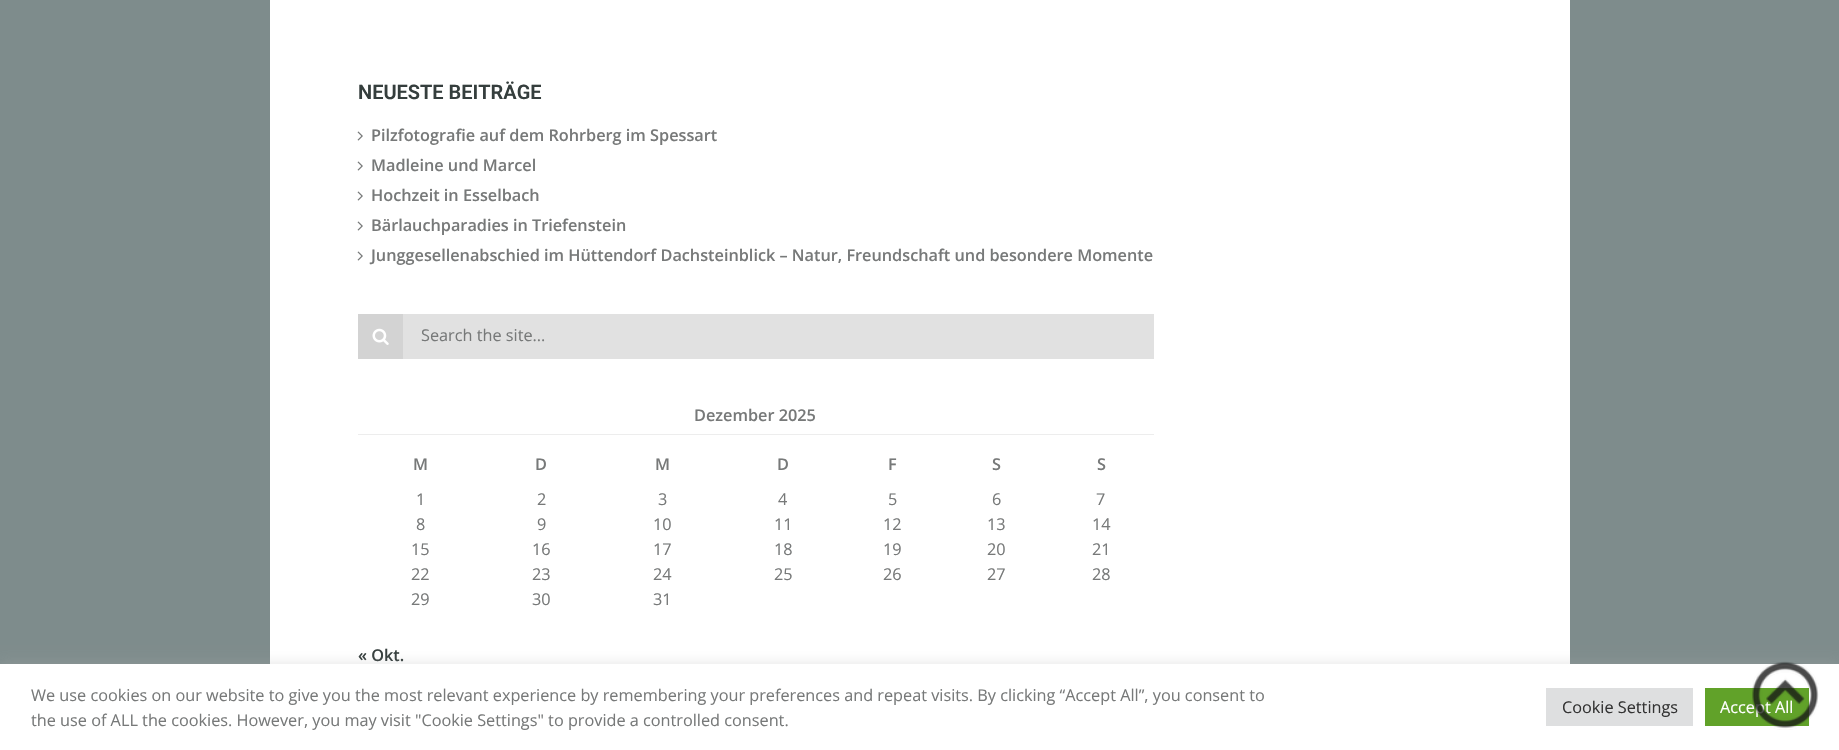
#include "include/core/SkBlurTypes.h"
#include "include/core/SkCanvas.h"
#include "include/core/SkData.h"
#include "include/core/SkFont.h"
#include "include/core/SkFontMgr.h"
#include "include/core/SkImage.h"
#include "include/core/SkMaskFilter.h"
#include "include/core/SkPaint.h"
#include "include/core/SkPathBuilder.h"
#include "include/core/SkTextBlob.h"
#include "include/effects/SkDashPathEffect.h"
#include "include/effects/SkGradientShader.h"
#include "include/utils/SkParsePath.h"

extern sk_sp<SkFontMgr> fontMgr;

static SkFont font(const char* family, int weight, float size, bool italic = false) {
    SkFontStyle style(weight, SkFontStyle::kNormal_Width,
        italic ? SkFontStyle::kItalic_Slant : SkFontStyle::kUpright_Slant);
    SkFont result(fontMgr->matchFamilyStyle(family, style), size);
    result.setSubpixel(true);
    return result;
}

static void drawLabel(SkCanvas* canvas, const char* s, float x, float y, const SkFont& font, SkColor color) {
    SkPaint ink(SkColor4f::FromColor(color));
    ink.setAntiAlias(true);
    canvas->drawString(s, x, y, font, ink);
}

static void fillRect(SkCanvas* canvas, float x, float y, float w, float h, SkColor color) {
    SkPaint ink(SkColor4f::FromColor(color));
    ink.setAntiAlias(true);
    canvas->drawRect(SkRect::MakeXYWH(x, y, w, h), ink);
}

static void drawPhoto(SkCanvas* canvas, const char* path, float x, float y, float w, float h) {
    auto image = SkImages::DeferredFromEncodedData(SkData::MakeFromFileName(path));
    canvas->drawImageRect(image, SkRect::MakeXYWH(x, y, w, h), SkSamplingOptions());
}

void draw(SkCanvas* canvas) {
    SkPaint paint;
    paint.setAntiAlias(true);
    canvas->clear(0xFF7E8C8C);
    fillRect(canvas, 270, 0, 1300, 664, 0xFFFFFFFF);
    SkFont font1 = font("Roboto", 600, 20);
    drawLabel(canvas, "NEUESTE BEITRÄGE", 358, 99, font1, 0xFF353E3D);
    drawPhoto(canvas, "assets/img1.png", 357, 131, 6, 10);
    SkFont font2 = font("Open Sans", 600, 16.25f);
    drawLabel(canvas, "Pilzfotografie auf dem Rohrberg im Spessart", 371, 141, font2, 0xFF777979);
    drawPhoto(canvas, "assets/img1.png", 357, 161, 6, 10);
    drawLabel(canvas, "Madleine und Marcel", 371, 171, font2, 0xFF777979);
    drawPhoto(canvas, "assets/img1.png", 357, 191, 6, 10);
    drawLabel(canvas, "Hochzeit in Esselbach", 371, 201, font2, 0xFF777979);
    drawPhoto(canvas, "assets/img1.png", 357, 221, 6, 10);
    drawLabel(canvas, "Bärlauchparadies in Triefenstein", 371, 231, font2, 0xFF777979);
    drawPhoto(canvas, "assets/img1.png", 357, 251, 6, 10);
    drawLabel(canvas, "Junggesellenabschied im Hüttendorf Dachsteinblick – Natur, Freundschaft und besondere Momente", 371, 261, font2, 0xFF777979);
    fillRect(canvas, 358, 314, 45, 45, 0xFFD3D3D3);
    drawPhoto(canvas, "assets/img2.png", 372, 328, 17, 17);
    fillRect(canvas, 403, 314, 751, 45, 0xFFE1E1E1);
    SkFont font3 = font("Open Sans", 400, 16.25f);
    drawLabel(canvas, "Search the site...", 421, 341, font3, 0xFF777979);
    fillRect(canvas, 358, 434, 796, 1, 0xFFEDEDED);
    drawLabel(canvas, "Dezember 2025", 694, 421, font2, 0xFF777979);
    drawLabel(canvas, "M", 413, 470, font2, 0xFF777979);
    drawLabel(canvas, "D", 535, 470, font2, 0xFF777979);
    drawLabel(canvas, "M", 655, 470, font2, 0xFF777979);
    drawLabel(canvas, "D", 777, 470, font2, 0xFF777979);
    drawLabel(canvas, "F", 888, 470, font2, 0xFF777979);
    drawLabel(canvas, "S", 992, 470, font2, 0xFF777979);
    drawLabel(canvas, "S", 1097, 470, font2, 0xFF777979);
    drawLabel(canvas, "1", 416, 505, font3, 0xFF777979);
    drawLabel(canvas, "2", 537, 505, font3, 0xFF777979);
    drawLabel(canvas, "3", 658, 505, font3, 0xFF777979);
    drawLabel(canvas, "4", 778, 505, font3, 0xFF777979);
    drawLabel(canvas, "5", 888, 505, font3, 0xFF777979);
    drawLabel(canvas, "6", 992, 505, font3, 0xFF777979);
    drawLabel(canvas, "7", 1096, 505, font3, 0xFF777979);
    drawLabel(canvas, "8", 416, 530, font3, 0xFF777979);
    drawLabel(canvas, "9", 537, 530, font3, 0xFF777979);
    drawLabel(canvas, "10", 653, 530, font3, 0xFF777979);
    drawLabel(canvas, "11", 774, 530, font3, 0xFF777979);
    drawLabel(canvas, "12", 883, 530, font3, 0xFF777979);
    drawLabel(canvas, "13", 987, 530, font3, 0xFF777979);
    drawLabel(canvas, "14", 1092, 530, font3, 0xFF777979);
    drawLabel(canvas, "15", 411, 555, font3, 0xFF777979);
    drawLabel(canvas, "16", 532, 555, font3, 0xFF777979);
    drawLabel(canvas, "17", 653, 555, font3, 0xFF777979);
    drawLabel(canvas, "18", 774, 555, font3, 0xFF777979);
    drawLabel(canvas, "19", 883, 555, font3, 0xFF777979);
    drawLabel(canvas, "20", 987, 555, font3, 0xFF777979);
    drawLabel(canvas, "21", 1092, 555, font3, 0xFF777979);
    drawLabel(canvas, "22", 411, 580, font3, 0xFF777979);
    drawLabel(canvas, "23", 532, 580, font3, 0xFF777979);
    drawLabel(canvas, "24", 653, 580, font3, 0xFF777979);
    drawLabel(canvas, "25", 774, 580, font3, 0xFF777979);
    drawLabel(canvas, "26", 883, 580, font3, 0xFF777979);
    drawLabel(canvas, "27", 987, 580, font3, 0xFF777979);
    drawLabel(canvas, "28", 1092, 580, font3, 0xFF777979);
    drawLabel(canvas, "29", 411, 605, font3, 0xFF777979);
    drawLabel(canvas, "30", 532, 605, font3, 0xFF777979);
    drawLabel(canvas, "31", 653, 605, font3, 0xFF777979);
    drawLabel(canvas, "« Okt.", 358, 661, font2, 0xFF353E3D);
    paint.setColor(0x4DACABAB);
    paint.setMaskFilter(SkMaskFilter::MakeBlur(kNormal_SkBlurStyle, 6));
    canvas->drawRect(SkRect::MakeXYWH(0, 663, 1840, 86), paint);
    paint.setMaskFilter(nullptr);
    fillRect(canvas, 0, 664, 1839, 86, 0xFFFFFFFF);
    fillRect(canvas, 1705, 688, 104, 38, 0xFF61A229);
    drawLabel(canvas, "Accept All", 1720, 713, font3, 0xFFFFFFFF);
    drawPhoto(canvas, "assets/img3.png", 1752, 661, 67, 69);
    drawLabel(canvas, "We use cookies on our website to give you the most relevant experience by remembering your preferences and repeat visits. By clicking “Accept All”, you consent to", 31, 701, font3, 0xFF777979);
    drawLabel(canvas, "the use of ALL the cookies. However, you may visit \"Cookie Settings\" to provide a controlled consent.", 31, 726, font3, 0xFF777979);
    fillRect(canvas, 1546, 688, 147, 38, 0xFFDEDFE0);
    drawLabel(canvas, "Cookie Settings", 1562, 713, font3, 0xFF333333);
}
